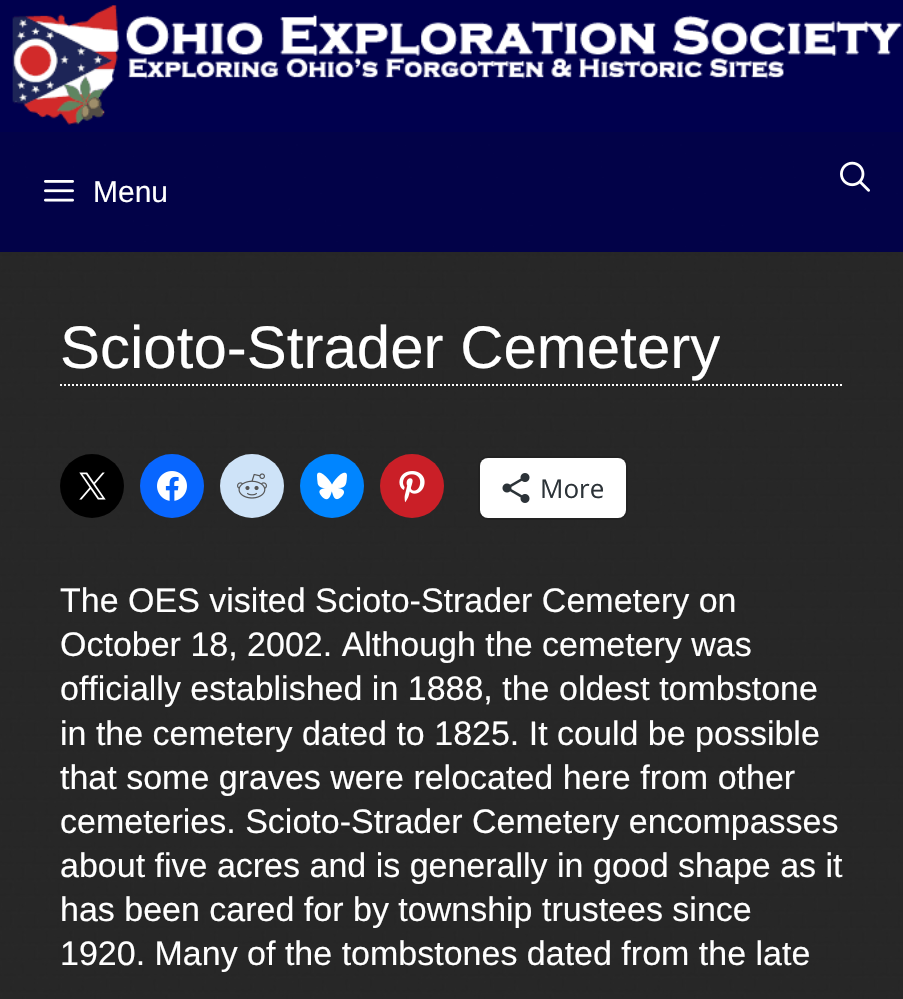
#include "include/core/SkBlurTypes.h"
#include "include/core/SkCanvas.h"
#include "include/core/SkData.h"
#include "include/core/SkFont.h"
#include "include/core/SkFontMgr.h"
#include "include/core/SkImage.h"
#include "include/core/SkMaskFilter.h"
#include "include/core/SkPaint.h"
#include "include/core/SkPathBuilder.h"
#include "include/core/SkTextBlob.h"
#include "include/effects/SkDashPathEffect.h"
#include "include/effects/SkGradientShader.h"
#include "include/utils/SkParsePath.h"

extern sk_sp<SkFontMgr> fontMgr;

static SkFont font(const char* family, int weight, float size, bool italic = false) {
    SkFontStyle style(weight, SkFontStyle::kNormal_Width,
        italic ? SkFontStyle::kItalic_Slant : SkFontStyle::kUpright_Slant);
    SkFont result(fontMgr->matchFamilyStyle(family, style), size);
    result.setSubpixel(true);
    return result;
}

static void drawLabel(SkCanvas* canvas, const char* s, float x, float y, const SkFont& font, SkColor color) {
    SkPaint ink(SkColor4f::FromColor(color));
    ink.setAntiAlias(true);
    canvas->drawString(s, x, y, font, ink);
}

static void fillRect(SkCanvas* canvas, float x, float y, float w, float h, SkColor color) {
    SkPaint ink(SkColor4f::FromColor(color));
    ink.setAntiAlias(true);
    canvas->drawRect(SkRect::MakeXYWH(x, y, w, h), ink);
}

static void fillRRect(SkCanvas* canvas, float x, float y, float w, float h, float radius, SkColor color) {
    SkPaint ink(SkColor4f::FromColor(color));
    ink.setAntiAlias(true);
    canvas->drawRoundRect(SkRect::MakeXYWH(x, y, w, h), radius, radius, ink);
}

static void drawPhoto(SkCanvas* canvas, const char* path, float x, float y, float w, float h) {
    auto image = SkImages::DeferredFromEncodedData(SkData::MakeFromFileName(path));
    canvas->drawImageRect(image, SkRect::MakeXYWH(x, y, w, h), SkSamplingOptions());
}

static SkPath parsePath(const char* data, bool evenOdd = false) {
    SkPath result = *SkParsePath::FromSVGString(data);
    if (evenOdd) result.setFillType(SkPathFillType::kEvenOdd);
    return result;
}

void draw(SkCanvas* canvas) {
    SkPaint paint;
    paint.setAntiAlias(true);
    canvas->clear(0xFFFFFFFF);
    drawPhoto(canvas, "assets/img1.png", 0, 132, 903, 867);
    fillRect(canvas, 0, 0, 903, 132, 0xFF00004E);
    drawPhoto(canvas, "assets/img2.png", 12, 5, 890, 120);
    fillRect(canvas, 0, 132, 903, 120, 0xE600004E);
    drawPhoto(canvas, "assets/img3.png", 44, 180, 30, 22);
    SkFont font1 = font("Liberation Sans", 400, 30);
    drawLabel(canvas, "Menu", 93, 202, font1, 0xFFFFFFFF);
    drawPhoto(canvas, "assets/img4.png", 840, 161, 30, 31);
    fillRect(canvas, 0, 252, 903, 747, 0xC92D2D2D);
    paint.setStroke(true);
    paint.setStrokeWidth(2);
    paint.setColor(0xFFFFFFFF);
    paint.setPathEffect(SkDashPathEffect::Make({{2, 2}}, 0));
    canvas->drawPath(parsePath("M60 385H844"), paint);
    paint.setPathEffect(nullptr);
    SkFont font2 = font("Liberation Sans", 400, 60);
    drawLabel(canvas, "Scioto-Strader Cemetery", 60, 368, font2, 0xFFFFFFFF);
    paint.setStroke(false);
    paint.setColor(0xFF000000);
    canvas->drawCircle(92, 486, 32, paint);
    drawPhoto(canvas, "assets/img5.png", 79, 472, 27, 28);
    paint.setColor(0xFF0866FF);
    canvas->drawCircle(172, 486, 32, paint);
    drawPhoto(canvas, "assets/img6.png", 157, 471, 30, 30);
    paint.setColor(0xFFCEE3F8);
    canvas->drawCircle(252, 486, 32, paint);
    drawPhoto(canvas, "assets/img7.png", 237, 473, 30, 26);
    paint.setColor(0xFF0085FF);
    canvas->drawCircle(332, 486, 32, paint);
    drawPhoto(canvas, "assets/img8.png", 317, 472, 30, 28);
    paint.setColor(0xFFCA1F27);
    canvas->drawCircle(412, 486, 32, paint);
    drawPhoto(canvas, "assets/img9.png", 399, 471, 26, 32);
    paint.setStroke(true);
    paint.setColor(0xFF222222);
    canvas->drawRoundRect(SkRect::MakeXYWH(479, 457, 148, 62), 9, 9, paint);
    fillRRect(canvas, 480, 458, 146, 60, 8, 0xFFFFFFFF);
    drawPhoto(canvas, "assets/img10.png", 502, 473, 28, 30);
    SkFont font3 = font("Open Sans", 400, 26);
    drawLabel(canvas, "More", 540, 498, font3, 0xFF2C3338);
    SkFont font4 = font("Liberation Sans", 400, 34);
    drawLabel(canvas, "The OES visited Scioto-Strader Cemetery on", 60, 612, font4, 0xFFFFFFFF);
    drawLabel(canvas, "October 18, 2002. Although the cemetery was", 60, 656, font4, 0xFFFFFFFF);
    drawLabel(canvas, "officially established in 1888, the oldest tombstone", 60, 700, font4, 0xFFFFFFFF);
    drawLabel(canvas, "in the cemetery dated to 1825. It could be possible", 60, 745, font4, 0xFFFFFFFF);
    drawLabel(canvas, "that some graves were relocated here from other", 60, 789, font4, 0xFFFFFFFF);
    drawLabel(canvas, "cemeteries. Scioto-Strader Cemetery encompasses", 60, 833, font4, 0xFFFFFFFF);
    drawLabel(canvas, "about five acres and is generally in good shape as it", 60, 877, font4, 0xFFFFFFFF);
    drawLabel(canvas, "has been cared for by township trustees since", 60, 921, font4, 0xFFFFFFFF);
    drawLabel(canvas, "1920. Many of the tombstones dated from the late", 60, 965, font4, 0xFFFFFFFF);
}
